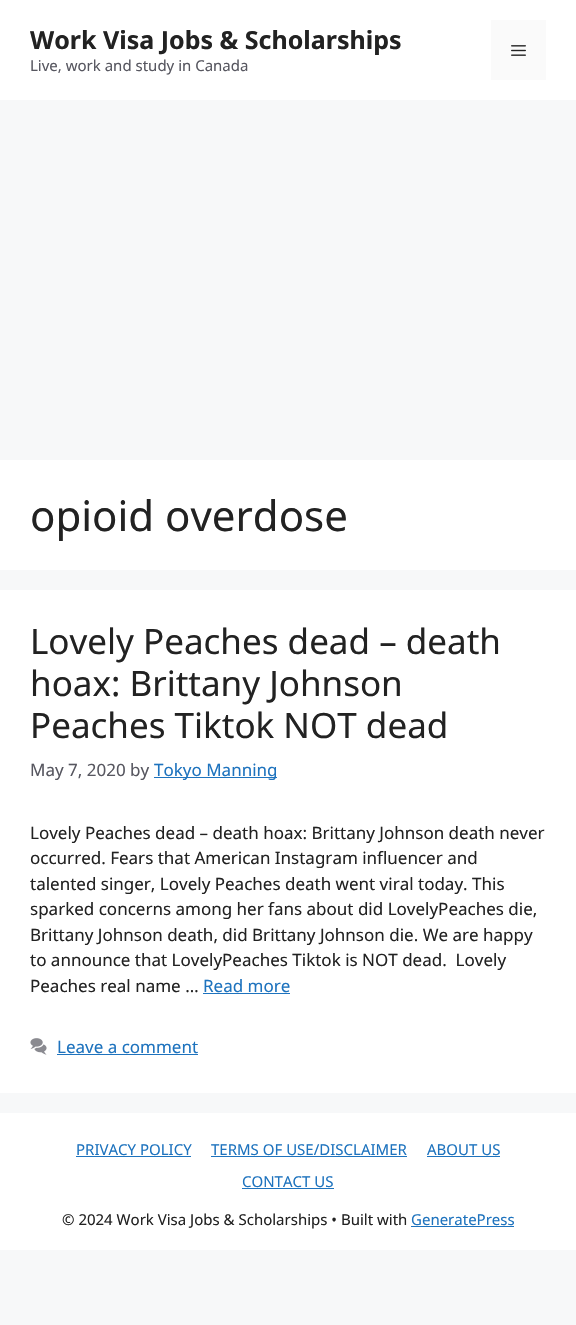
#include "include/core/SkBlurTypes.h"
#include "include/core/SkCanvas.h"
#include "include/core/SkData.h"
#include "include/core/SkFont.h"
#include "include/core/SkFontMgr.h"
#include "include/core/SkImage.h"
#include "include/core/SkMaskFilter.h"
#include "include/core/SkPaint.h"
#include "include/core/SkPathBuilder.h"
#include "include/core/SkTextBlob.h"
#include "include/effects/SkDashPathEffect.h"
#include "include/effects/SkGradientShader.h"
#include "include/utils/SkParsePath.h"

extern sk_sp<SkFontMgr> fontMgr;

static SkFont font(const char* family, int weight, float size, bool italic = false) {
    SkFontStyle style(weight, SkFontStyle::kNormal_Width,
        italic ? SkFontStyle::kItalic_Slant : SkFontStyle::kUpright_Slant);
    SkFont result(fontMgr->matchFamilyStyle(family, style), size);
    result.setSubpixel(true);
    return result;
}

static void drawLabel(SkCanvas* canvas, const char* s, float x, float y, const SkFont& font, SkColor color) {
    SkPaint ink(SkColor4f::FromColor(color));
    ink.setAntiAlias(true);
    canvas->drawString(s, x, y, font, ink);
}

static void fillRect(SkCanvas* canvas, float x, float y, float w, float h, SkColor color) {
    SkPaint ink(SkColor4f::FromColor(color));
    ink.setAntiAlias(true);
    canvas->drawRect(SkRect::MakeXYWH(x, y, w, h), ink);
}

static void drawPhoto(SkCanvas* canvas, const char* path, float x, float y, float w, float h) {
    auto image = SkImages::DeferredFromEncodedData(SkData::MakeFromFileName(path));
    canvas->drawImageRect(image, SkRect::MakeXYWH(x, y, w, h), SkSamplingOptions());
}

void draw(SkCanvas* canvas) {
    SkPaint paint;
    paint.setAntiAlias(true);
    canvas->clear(0xFFF7F8F9);
    fillRect(canvas, 0, 0, 576, 100, 0xFFFFFFFF);
    SkFont font1 = font("Noto Sans", 700, 25);
    drawLabel(canvas, "Work Visa Jobs & Scholarships", 30, 49, font1, 0xFF222222);
    SkFont font2 = font("Noto Sans", 400, 15);
    drawLabel(canvas, "Live, work and study in Canada", 30, 71, font2, 0xFF575760);
    fillRect(canvas, 491, 20, 55, 60, 0xFFFAFAFA);
    drawPhoto(canvas, "assets/img1.png", 511, 45, 15, 11);
    fillRect(canvas, 0, 460, 576, 110, 0xFFFFFFFF);
    SkFont font3 = font("Noto Sans", 400, 42);
    drawLabel(canvas, "opioid overdose", 30, 531, font3, 0xFF222222);
    fillRect(canvas, 0, 590, 576, 503, 0xFFFFFFFF);
    SkFont font4 = font("Noto Sans", 400, 35);
    drawLabel(canvas, "Lovely Peaches dead – death", 30, 654, font4, 0xFF222222);
    drawLabel(canvas, "hoax: Brittany Johnson", 30, 696, font4, 0xFF222222);
    drawLabel(canvas, "Peaches Tiktok NOT dead", 30, 738, font4, 0xFF222222);
    SkFont font5 = font("Noto Sans", 400, 17);
    drawLabel(canvas, "May 7, 2020 by", 30, 776, font5, 0xFF575760);
    fillRect(canvas, 154, 777, 123, 1, 0xFF1E73BE);
    drawLabel(canvas, "Tokyo Manning", 154, 776, font5, 0xFF1E73BE);
    drawLabel(canvas, "Lovely Peaches dead – death hoax: Brittany Johnson death never", 30, 839, font5, 0xFF222222);
    drawLabel(canvas, "occurred. Fears that American Instagram influencer and", 30, 864, font5, 0xFF222222);
    drawLabel(canvas, "talented singer, Lovely Peaches death went viral today. This", 30, 890, font5, 0xFF222222);
    drawLabel(canvas, "sparked concerns among her fans about did LovelyPeaches die,", 30, 915, font5, 0xFF222222);
    drawLabel(canvas, "Brittany Johnson death, did Brittany Johnson die. We are happy", 30, 941, font5, 0xFF222222);
    drawLabel(canvas, "to announce that LovelyPeaches Tiktok is NOT dead.  Lovely", 30, 966, font5, 0xFF222222);
    drawLabel(canvas, "Peaches real name …", 30, 992, font5, 0xFF222222);
    drawLabel(canvas, "Read more", 203, 992, font5, 0xFF1E73BE);
    fillRect(canvas, 203, 993, 87, 1, 0xFF1E73BE);
    drawPhoto(canvas, "assets/img2.png", 30, 1038, 17, 17);
    drawLabel(canvas, "Leave a comment", 57, 1053, font5, 0xFF1E73BE);
    fillRect(canvas, 57, 1054, 141, 1, 0xFF1E73BE);
    fillRect(canvas, 0, 1113, 576, 137, 0xFFFFFFFF);
    drawLabel(canvas, "PRIVACY POLICY", 76, 1155, font2, 0xFF1E73BE);
    fillRect(canvas, 76, 1156, 115, 1, 0xFF1E73BE);
    drawLabel(canvas, "TERMS OF USE/DISCLAIMER", 211, 1155, font2, 0xFF1E73BE);
    fillRect(canvas, 211, 1156, 196, 1, 0xFF1E73BE);
    drawLabel(canvas, "ABOUT US", 427, 1155, font2, 0xFF1E73BE);
    fillRect(canvas, 427, 1156, 73, 1, 0xFF1E73BE);
    drawLabel(canvas, "CONTACT US", 242, 1187, font2, 0xFF1E73BE);
    fillRect(canvas, 242, 1188, 92, 1, 0xFF1E73BE);
    drawLabel(canvas, "© 2024 Work Visa Jobs & Scholarships • Built with", 62, 1225, font2, 0xFF222222);
    drawLabel(canvas, "GeneratePress", 411, 1225, font2, 0xFF1E73BE);
    fillRect(canvas, 411, 1226, 103, 1, 0xFF1E73BE);
}
